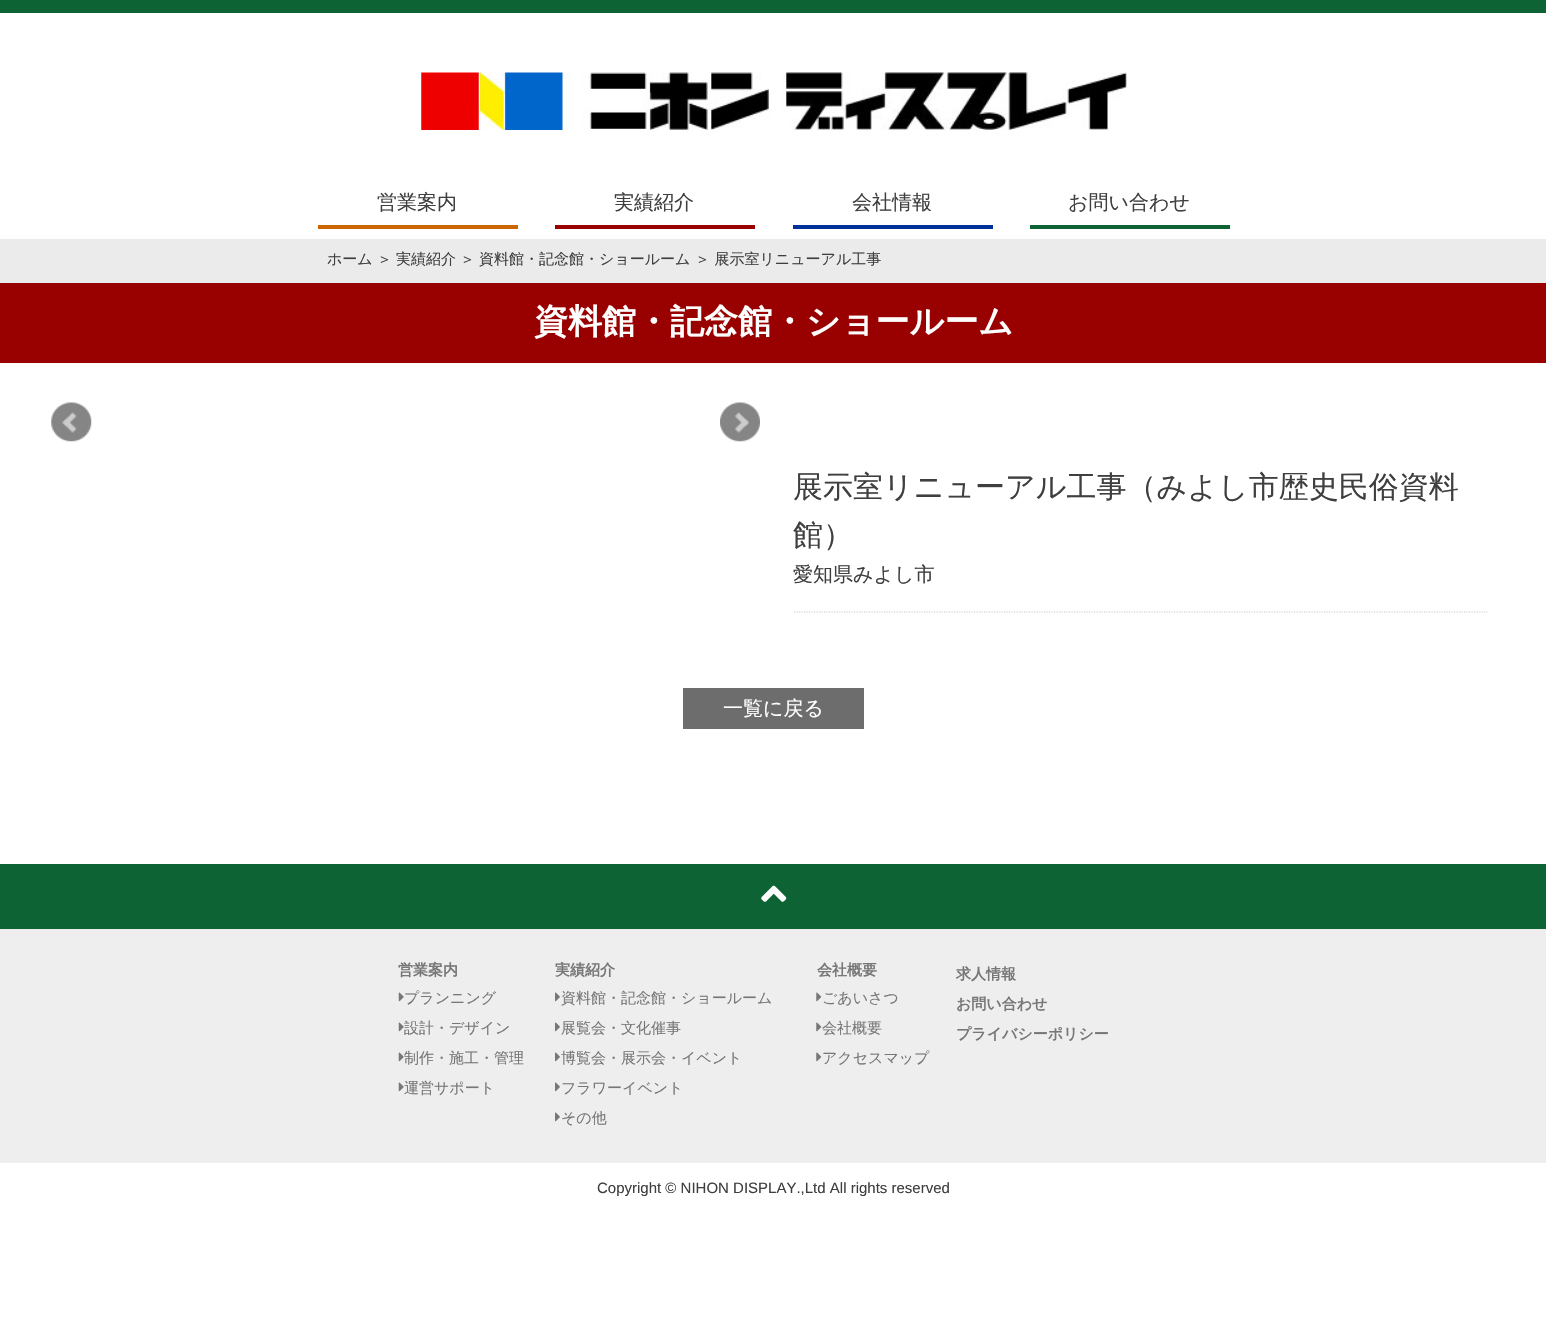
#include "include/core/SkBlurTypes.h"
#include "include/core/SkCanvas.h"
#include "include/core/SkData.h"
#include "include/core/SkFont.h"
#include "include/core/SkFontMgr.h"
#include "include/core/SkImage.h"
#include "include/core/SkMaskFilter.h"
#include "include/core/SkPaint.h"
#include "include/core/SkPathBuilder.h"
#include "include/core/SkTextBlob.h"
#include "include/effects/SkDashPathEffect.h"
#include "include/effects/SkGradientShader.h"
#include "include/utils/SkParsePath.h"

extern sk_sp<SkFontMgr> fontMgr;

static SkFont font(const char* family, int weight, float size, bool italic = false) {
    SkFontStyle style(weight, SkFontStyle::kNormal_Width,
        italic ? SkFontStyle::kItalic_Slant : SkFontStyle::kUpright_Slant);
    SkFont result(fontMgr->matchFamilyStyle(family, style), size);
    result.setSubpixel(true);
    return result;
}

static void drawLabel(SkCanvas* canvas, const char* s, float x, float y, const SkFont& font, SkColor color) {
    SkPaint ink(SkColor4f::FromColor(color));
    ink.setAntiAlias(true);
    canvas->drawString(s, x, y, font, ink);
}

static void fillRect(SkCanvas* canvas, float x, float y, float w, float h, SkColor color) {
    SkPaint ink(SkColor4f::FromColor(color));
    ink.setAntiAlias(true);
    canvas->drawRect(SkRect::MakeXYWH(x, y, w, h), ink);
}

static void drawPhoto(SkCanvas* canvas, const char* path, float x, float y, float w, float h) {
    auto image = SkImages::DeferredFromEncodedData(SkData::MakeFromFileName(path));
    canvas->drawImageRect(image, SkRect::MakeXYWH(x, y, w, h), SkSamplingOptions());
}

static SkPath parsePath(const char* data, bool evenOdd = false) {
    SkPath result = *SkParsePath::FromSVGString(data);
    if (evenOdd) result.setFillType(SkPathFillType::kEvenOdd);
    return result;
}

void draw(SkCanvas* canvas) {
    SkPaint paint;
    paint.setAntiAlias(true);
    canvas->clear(0xFFFFFFFF);
    fillRect(canvas, 0, 0, 1546, 13, 0xFF0D6334);
    drawPhoto(canvas, "assets/img1.png", 421, 72, 706, 58);
    fillRect(canvas, 318, 225, 200, 4, 0xFFCC6600);
    SkFont font1 = font("WenQuanYi Zen Hei", 500, 20);
    drawLabel(canvas, "営業案内", 377, 209, font1, 0xFF3F3F3F);
    fillRect(canvas, 555, 225, 200, 4, 0xFF990000);
    drawLabel(canvas, "実績紹介", 614, 209, font1, 0xFF3F3F3F);
    fillRect(canvas, 793, 225, 200, 4, 0xFF003299);
    drawLabel(canvas, "会社情報", 852, 209, font1, 0xFF3F3F3F);
    fillRect(canvas, 1030, 225, 200, 4, 0xFF0D6334);
    drawLabel(canvas, "お問い合わせ", 1068, 209, font1, 0xFF3F3F3F);
    fillRect(canvas, 0, 239, 1546, 44, 0xFFEBEBEC);
    SkFont font2 = font("WenQuanYi Zen Hei", 500, 15);
    drawLabel(canvas, "ホーム", 327, 264, font2, 0xFF3F3F3F);
    drawLabel(canvas, "＞", 377, 264, font2, 0xFF3F3F3F);
    drawLabel(canvas, "実績紹介", 396, 264, font2, 0xFF3F3F3F);
    drawLabel(canvas, "＞", 460, 264, font2, 0xFF3F3F3F);
    drawLabel(canvas, "資料館・記念館・ショールーム", 479, 264, font2, 0xFF3F3F3F);
    drawLabel(canvas, "＞ 展示室リニューアル工事", 695, 264, font2, 0xFF3F3F3F);
    fillRect(canvas, 0, 283, 1546, 80, 0xFF990000);
    SkFont font3 = font("WenQuanYi Zen Hei", 700, 34);
    drawLabel(canvas, "資料館・記念館・ショールーム", 534, 333, font3, 0xFFFFFFFF);
    drawPhoto(canvas, "assets/img2.png", 51, 402, 41, 40);
    drawPhoto(canvas, "assets/img3.png", 720, 402, 40, 40);
    SkFont font4 = font("WenQuanYi Zen Hei", 500, 30);
    drawLabel(canvas, "展示室リニューアル工事（みよし市歴史民俗資料", 793, 497, font4, 0xFF3F3F3F);
    drawLabel(canvas, "館）", 793, 545, font4, 0xFF3F3F3F);
    paint.setStroke(true);
    paint.setStrokeWidth(1.2f);
    paint.setColor(0xFFCCCCCC);
    paint.setPathEffect(SkDashPathEffect::Make({{1.25f, 1.25f}}, 0));
    canvas->drawPath(parsePath("M794 612H1487.5"), paint);
    paint.setPathEffect(nullptr);
    drawLabel(canvas, "愛知県みよし市", 793, 581, font1, 0xFF3F3F3F);
    fillRect(canvas, 683, 688, 181, 41, 0xFF6D6D6D);
    drawLabel(canvas, "一覧に戻る", 723, 715, font1, 0xFFFFFFFF);
    fillRect(canvas, 0, 864, 1546, 65, 0xFF0D6334);
    drawPhoto(canvas, "assets/img4.png", 761, 885, 26, 17);
    fillRect(canvas, 0, 929, 1546, 234, 0xFFEEEEEE);
    SkFont font5 = font("WenQuanYi Zen Hei", 700, 15);
    drawLabel(canvas, "営業案内", 398, 975, font5, 0xFF777777);
    drawPhoto(canvas, "assets/img5.png", 398, 992, 6, 10);
    drawLabel(canvas, "プランニング", 404, 1003, font2, 0xFF777777);
    drawPhoto(canvas, "assets/img5.png", 398, 1022, 6, 10);
    drawLabel(canvas, "設計・デザイン", 404, 1033, font2, 0xFF777777);
    drawPhoto(canvas, "assets/img5.png", 398, 1052, 6, 10);
    drawLabel(canvas, "制作・施工・管理", 404, 1063, font2, 0xFF777777);
    drawPhoto(canvas, "assets/img5.png", 398, 1082, 6, 10);
    drawLabel(canvas, "運営サポート", 404, 1093, font2, 0xFF777777);
    drawLabel(canvas, "実績紹介", 555, 975, font5, 0xFF777777);
    drawPhoto(canvas, "assets/img6.png", 555, 992, 5, 10);
    drawLabel(canvas, "資料館・記念館・ショールーム", 561, 1003, font2, 0xFF777777);
    drawPhoto(canvas, "assets/img6.png", 555, 1022, 5, 10);
    drawLabel(canvas, "展覧会・文化催事", 561, 1033, font2, 0xFF777777);
    drawPhoto(canvas, "assets/img6.png", 555, 1052, 5, 10);
    drawLabel(canvas, "博覧会・展示会・イベント", 561, 1063, font2, 0xFF777777);
    drawPhoto(canvas, "assets/img6.png", 555, 1082, 5, 10);
    drawLabel(canvas, "フラワーイベント", 561, 1093, font2, 0xFF777777);
    drawPhoto(canvas, "assets/img6.png", 555, 1112, 5, 10);
    drawLabel(canvas, "その他", 561, 1123, font2, 0xFF777777);
    drawLabel(canvas, "会社概要", 817, 975, font5, 0xFF777777);
    drawPhoto(canvas, "assets/img7.png", 816, 992, 6, 10);
    drawLabel(canvas, "ごあいさつ", 822, 1003, font2, 0xFF777777);
    drawPhoto(canvas, "assets/img7.png", 816, 1022, 6, 10);
    drawLabel(canvas, "会社概要", 822, 1033, font2, 0xFF777777);
    drawPhoto(canvas, "assets/img7.png", 816, 1052, 6, 10);
    drawLabel(canvas, "アクセスマップ", 822, 1063, font2, 0xFF777777);
    drawLabel(canvas, "求人情報", 956, 979, font5, 0xFF777777);
    drawLabel(canvas, "お問い合わせ", 956, 1009, font5, 0xFF777777);
    drawLabel(canvas, "プライバシーポリシー", 956, 1039, font5, 0xFF777777);
    SkFont font6 = font("Liberation Sans", 400, 15);
    drawLabel(canvas, "Copyright © NIHON DISPLAY.,Ltd All rights reserved", 597, 1193, font6, 0xFF3F3F3F);
}
